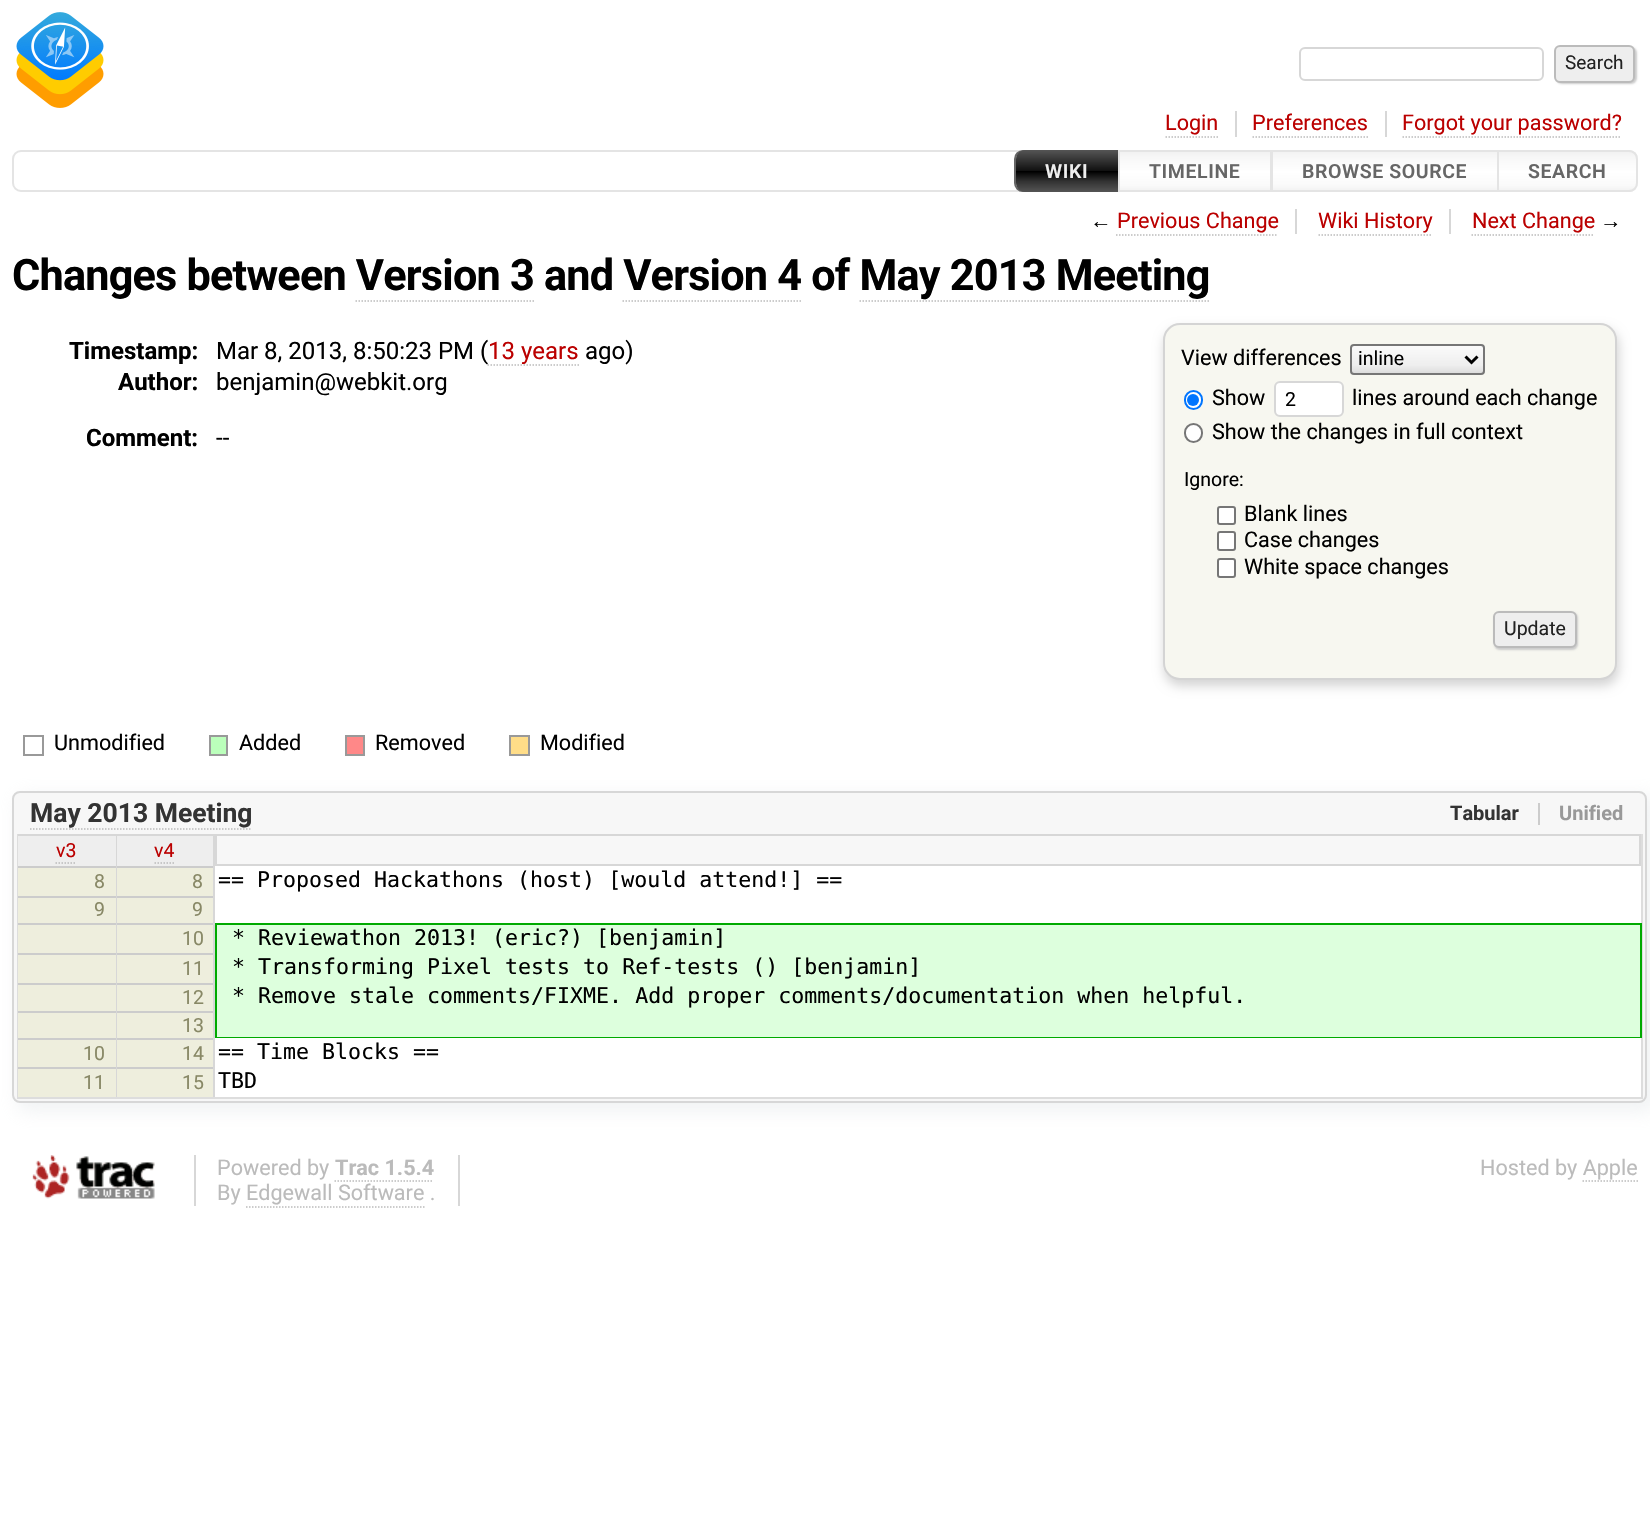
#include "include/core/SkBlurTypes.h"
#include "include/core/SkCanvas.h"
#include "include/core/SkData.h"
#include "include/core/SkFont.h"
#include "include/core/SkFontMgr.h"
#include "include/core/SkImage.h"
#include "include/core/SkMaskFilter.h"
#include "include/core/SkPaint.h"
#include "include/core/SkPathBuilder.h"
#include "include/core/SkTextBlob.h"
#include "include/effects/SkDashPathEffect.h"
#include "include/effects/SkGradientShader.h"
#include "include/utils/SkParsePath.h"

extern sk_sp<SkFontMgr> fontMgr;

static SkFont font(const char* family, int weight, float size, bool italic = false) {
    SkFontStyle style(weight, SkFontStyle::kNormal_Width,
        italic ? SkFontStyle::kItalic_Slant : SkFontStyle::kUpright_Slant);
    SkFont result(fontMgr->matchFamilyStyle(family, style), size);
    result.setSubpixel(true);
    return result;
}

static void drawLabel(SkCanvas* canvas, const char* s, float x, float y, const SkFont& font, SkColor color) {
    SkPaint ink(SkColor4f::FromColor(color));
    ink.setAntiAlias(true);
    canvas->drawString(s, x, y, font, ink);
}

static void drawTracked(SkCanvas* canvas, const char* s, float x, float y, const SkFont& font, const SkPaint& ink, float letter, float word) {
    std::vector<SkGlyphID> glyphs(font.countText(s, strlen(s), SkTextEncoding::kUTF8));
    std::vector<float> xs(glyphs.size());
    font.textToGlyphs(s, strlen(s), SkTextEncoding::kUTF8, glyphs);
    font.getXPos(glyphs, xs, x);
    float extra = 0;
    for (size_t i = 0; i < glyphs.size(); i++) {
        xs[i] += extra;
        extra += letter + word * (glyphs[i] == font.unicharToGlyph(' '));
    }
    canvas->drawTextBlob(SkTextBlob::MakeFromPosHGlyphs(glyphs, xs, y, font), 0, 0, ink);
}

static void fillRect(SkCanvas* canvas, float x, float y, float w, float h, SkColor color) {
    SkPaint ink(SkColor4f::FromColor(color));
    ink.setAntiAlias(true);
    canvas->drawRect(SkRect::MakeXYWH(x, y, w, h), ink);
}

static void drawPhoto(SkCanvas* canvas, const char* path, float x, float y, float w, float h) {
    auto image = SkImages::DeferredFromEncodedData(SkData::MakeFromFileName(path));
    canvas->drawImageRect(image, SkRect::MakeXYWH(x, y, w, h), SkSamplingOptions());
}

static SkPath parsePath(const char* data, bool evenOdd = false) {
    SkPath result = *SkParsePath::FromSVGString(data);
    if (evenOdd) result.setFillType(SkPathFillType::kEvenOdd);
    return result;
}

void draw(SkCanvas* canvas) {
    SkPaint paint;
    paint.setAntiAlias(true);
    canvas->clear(0xFFFFFFFF);
    drawPhoto(canvas, "assets/img1.png", 16, 12, 88, 96);
    paint.setStroke(true);
    paint.setStrokeWidth(2);
    paint.setColor(0xFFD7D7D7);
    canvas->drawRoundRect(SkRect::MakeXYWH(1300, 48, 243, 32), 5, 5, paint);
    paint.setStroke(false);
    paint.setColor(0xFFCCCCCC);
    paint.setMaskFilter(SkMaskFilter::MakeBlur(kNormal_SkBlurStyle, 1));
    canvas->drawRoundRect(SkRect::MakeXYWH(1556, 47, 81, 37), 6, 6, paint);
    paint.setMaskFilter(nullptr);
    paint.setColor(0xFFEEEEEE);
    canvas->drawRoundRect(SkRect::MakeXYWH(1555, 46, 79, 36), 5, 5, paint);
    paint.setStroke(true);
    paint.setColor(0xFFBBBBBB);
    canvas->drawRoundRect(SkRect::MakeXYWH(1555, 46, 79, 36), 5, 5, paint);
    SkFont font1 = font("Roboto", 400, 19);
    drawLabel(canvas, "Search", 1565, 69, font1, 0xFF222222);
    fillRect(canvas, 1235, 111, 2, 26, 0xFFD7D7D7);
    SkFont font2 = font("Roboto", 400, 21.6f);
    drawLabel(canvas, "Login", 1165, 130, font2, 0xFFBB0000);
    paint.setStrokeWidth(1.5f);
    paint.setPathEffect(SkDashPathEffect::Make({{1.5f, 1.5f}}, 0));
    canvas->drawPath(parsePath("M1165.5 137H1218"), paint);
    paint.setPathEffect(nullptr);
    fillRect(canvas, 1385, 111, 2, 26, 0xFFD7D7D7);
    drawLabel(canvas, "Preferences", 1252, 130, font2, 0xFFBB0000);
    paint.setPathEffect(SkDashPathEffect::Make({{1.5f, 1.5f}}, 0));
    canvas->drawPath(parsePath("M1252.5 137H1368"), paint);
    paint.setPathEffect(nullptr);
    drawLabel(canvas, "Forgot your password?", 1402, 130, font2, 0xFFBB0000);
    paint.setPathEffect(SkDashPathEffect::Make({{1.5f, 1.5f}}, 0));
    canvas->drawPath(parsePath("M1402.5 137H1621.5"), paint);
    paint.setPathEffect(nullptr);
    paint.setStrokeWidth(2);
    paint.setColor(0xFFE4E4E4);
    canvas->drawRoundRect(SkRect::MakeXYWH(13, 151, 1624, 40), 8, 8, paint);
    paint.setColor(0xFF666666);
    canvas->drawPath(parsePath("M1023 151H1118V191H1023C1018.5 191 1015 187.5 1015 183V159C1015 154.5 1018.5 151 1023 151Z"), paint);
    paint.setStroke(false);
    {
        const SkColor colors[] = {0xFF555555, 0xFF333333, 0xFF111111, 0xFF000000, 0xFF333333, 0xFF555555};
        const float stops[] = {0, 0.25f, 0.49f, 0.51f, 0.75f, 1};
        const SkPoint ends[] = {{1067, 150}, {1067, 192}};
        paint.setShader(SkGradientShader::MakeLinear(ends, colors, stops, 6, SkTileMode::kClamp));
        paint.setAlpha(255);
    }
    canvas->drawPath(parsePath("M1025 150H1118V192H1025C1020 192 1016 188 1016 183V159C1016 154 1020 150 1025 150Z"), paint);
    SkFont font3 = font("Roboto", 600, 19.5f);
    paint.setShader(nullptr);
    paint.setColor(0xFFEEEEEE);
    drawTracked(canvas, "WIKI", 1045, 178, font3, paint, 0.6f, 0);
    {
        const SkColor colors[] = {0xFFF2F2F2, 0xFFFAFAFA, 0xFFFEFEFE, 0xFFFFFFFF, 0xFFFAFAFA, 0xFFF2F2F2};
        const float stops[] = {0, 0.25f, 0.49f, 0.51f, 0.85f, 1};
        const SkPoint ends[] = {{1195, 152}, {1195, 191}};
        paint.setShader(SkGradientShader::MakeLinear(ends, colors, stops, 6, SkTileMode::kClamp));
        paint.setAlpha(255);
    }
    canvas->drawRect(SkRect::MakeXYWH(1120, 152, 150, 38), paint);
    paint.setStroke(true);
    paint.setShader(nullptr);
    paint.setColor(0xFFE4E4E4);
    canvas->drawRect(SkRect::MakeXYWH(1119, 151, 152, 40), paint);
    paint.setStroke(false);
    paint.setColor(0xFF666666);
    drawTracked(canvas, "TIMELINE", 1149, 178, font3, paint, 0.6f, 0);
    {
        const SkColor colors[] = {0xFFF2F2F2, 0xFFFAFAFA, 0xFFFEFEFE, 0xFFFFFFFF, 0xFFFAFAFA, 0xFFF2F2F2};
        const float stops[] = {0, 0.25f, 0.49f, 0.51f, 0.85f, 1};
        const SkPoint ends[] = {{1385, 151}, {1385, 191}};
        paint.setShader(SkGradientShader::MakeLinear(ends, colors, stops, 6, SkTileMode::kClamp));
        paint.setAlpha(255);
    }
    canvas->drawRect(SkRect::MakeXYWH(1273, 152, 224, 38), paint);
    paint.setStroke(true);
    paint.setShader(nullptr);
    paint.setColor(0xFFE4E4E4);
    canvas->drawRect(SkRect::MakeXYWH(1272, 151, 226, 40), paint);
    paint.setStroke(false);
    paint.setColor(0xFF666666);
    drawTracked(canvas, "BROWSE SOURCE", 1302, 178, font3, paint, 0.6f, 0);
    canvas->save();
    canvas->clipPath(parsePath("M1497 150H1629C1634 150 1638 154 1638 159V183C1638 188 1634 192 1629 192H1497Z"), true);
    {
        const SkColor colors[] = {0xFFF2F2F2, 0xFFFAFAFA, 0xFFFEFEFE, 0xFFFFFFFF, 0xFFFAFAFA, 0xFFF2F2F2};
        const float stops[] = {0, 0.25f, 0.49f, 0.51f, 0.85f, 1};
        const SkPoint ends[] = {{1568, 152}, {1568, 191}};
        paint.setShader(SkGradientShader::MakeLinear(ends, colors, stops, 6, SkTileMode::kClamp));
        paint.setAlpha(255);
    }
    canvas->drawRect(SkRect::MakeXYWH(1499, 152, 139, 39), paint);
    canvas->restore();
    paint.setStroke(true);
    paint.setShader(nullptr);
    paint.setColor(0xFFE4E4E4);
    canvas->drawPath(parsePath("M1498 151H1629C1633.5 151 1637 154.5 1637 159V183C1637 187.5 1633.5 191 1629 191H1498Z"), paint);
    paint.setStroke(false);
    paint.setColor(0xFF666666);
    drawTracked(canvas, "SEARCH", 1528, 178, font3, paint, 0.6f, 0);
    fillRect(canvas, 1295, 209, 2, 25, 0xFFD7D7D7);
    SkFont font4 = font("Liberation Sans", 400, 21.6f);
    drawLabel(canvas, "←", 1090, 228, font4, 0xFF000000);
    drawLabel(canvas, "Previous Change", 1117, 228, font2, 0xFFBB0000);
    paint.setStroke(true);
    paint.setStrokeWidth(1.5f);
    paint.setColor(0xFFBBBBBB);
    paint.setPathEffect(SkDashPathEffect::Make({{1.5f, 1.5f}}, 0));
    canvas->drawPath(parsePath("M1116 235H1278"), paint);
    paint.setPathEffect(nullptr);
    fillRect(canvas, 1449, 209, 2, 25, 0xFFD7D7D7);
    drawLabel(canvas, "Wiki History", 1318, 228, font2, 0xFFBB0000);
    paint.setPathEffect(SkDashPathEffect::Make({{1.5f, 1.5f}}, 0));
    canvas->drawPath(parsePath("M1318.5 235H1432.5"), paint);
    paint.setPathEffect(nullptr);
    drawLabel(canvas, "Next Change", 1472, 228, font2, 0xFFBB0000);
    paint.setPathEffect(SkDashPathEffect::Make({{1.5f, 1.5f}}, 0));
    canvas->drawPath(parsePath("M1471.5 235H1594.5"), paint);
    paint.setPathEffect(nullptr);
    drawLabel(canvas, "→", 1600, 228, font4, 0xFF000000);
    SkFont font5 = font("Roboto", 700, 43.2f);
    paint.setStroke(false);
    paint.setColor(0xFF000000);
    drawTracked(canvas, "Changes between Version 3 and Version 4 of May 2013 Meeting", 12, 290, font5, paint, -0.78f, 0);
    paint.setStroke(true);
    paint.setColor(0xFFBBBBBB);
    paint.setPathEffect(SkDashPathEffect::Make({{1.5f, 1.5f}}, 0));
    canvas->drawPath(parsePath("M355.5 301H534"), paint);
    paint.setPathEffect(nullptr);
    paint.setPathEffect(SkDashPathEffect::Make({{1.5f, 1.5f}}, 0));
    canvas->drawPath(parsePath("M622.5 301H801"), paint);
    paint.setPathEffect(nullptr);
    paint.setPathEffect(SkDashPathEffect::Make({{1.5f, 1.5f}}, 0));
    canvas->drawPath(parsePath("M859.5 301H1210.5"), paint);
    paint.setPathEffect(nullptr);
    SkFont font6 = font("Roboto", 700, 24);
    drawLabel(canvas, "Timestamp:", 69, 359, font6, 0xFF000000);
    SkFont font7 = font("Roboto", 400, 24);
    drawLabel(canvas, "Mar 8, 2013, 8:50:23 PM (", 216, 359, font7, 0xFF000000);
    paint.setPathEffect(SkDashPathEffect::Make({{1.5f, 1.5f}}, 0));
    canvas->drawPath(parsePath("M487.5 365H579"), paint);
    paint.setPathEffect(nullptr);
    drawLabel(canvas, "13 years", 488, 359, font7, 0xFFBB0000);
    drawLabel(canvas, "ago)", 585, 359, font7, 0xFF000000);
    drawLabel(canvas, "Author:", 118, 390, font6, 0xFF000000);
    drawLabel(canvas, "benjamin@webkit.org", 216, 390, font7, 0xFF000000);
    drawLabel(canvas, "Comment:", 86, 446, font6, 0xFF000000);
    drawLabel(canvas, "--", 216, 446, font7, 0xFF000000);
    paint.setStroke(false);
    paint.setColor(0xFFD4D4D4);
    paint.setMaskFilter(SkMaskFilter::MakeBlur(kNormal_SkBlurStyle, 5.5f));
    canvas->drawRoundRect(SkRect::MakeXYWH(1164, 329, 455, 357), 17, 17, paint);
    paint.setMaskFilter(nullptr);
    paint.setColor(0xFFF7F7F0);
    canvas->drawRoundRect(SkRect::MakeXYWH(1164, 324, 452, 355), 16, 16, paint);
    paint.setStroke(true);
    paint.setStrokeWidth(2);
    paint.setColor(0xFFD4D4D4);
    canvas->drawRoundRect(SkRect::MakeXYWH(1164, 324, 452, 355), 16, 16, paint);
    drawLabel(canvas, "View differences", 1181, 365, font2, 0xFF000000);
    canvas->save();
    canvas->clipPath(parsePath("M1354 344H1481C1483 344 1485 346 1485 348V371C1485 373 1483 375 1481 375H1354C1352 375 1350 373 1350 371V348C1350 346 1352 344 1354 344Z"), true);
    paint.setStroke(false);
    {
        const SkColor colors[] = {0xFFDBDBDB, 0xFFEEEEEE, 0xFFFBFBFB};
        const float stops[] = {0, 0.3f, 1};
        const SkPoint ends[] = {{1418, 374}, {1418, 345}};
        paint.setShader(SkGradientShader::MakeLinear(ends, colors, stops, 3, SkTileMode::kClamp));
        paint.setAlpha(255);
    }
    canvas->drawRect(SkRect::MakeXYWH(1350, 345, 135, 29), paint);
    canvas->restore();
    paint.setStroke(true);
    paint.setShader(nullptr);
    paint.setColor(0xFF767676);
    canvas->drawRoundRect(SkRect::MakeXYWH(1351, 345, 133, 29), 3, 3, paint);
    paint.setStrokeWidth(3);
    paint.setColor(0xFF000000);
    canvas->drawPath(parsePath("M1465.5 356.5L1471.5 362.5L1477.5 356.5"), paint);
    SkFont font8 = font("Roboto", 400, 19.5f);
    drawLabel(canvas, "inline", 1358, 365, font8, 0xFF000000);
    paint.setStroke(false);
    paint.setColor(0xFFFFFFFF);
    canvas->drawRoundRect(SkRect::MakeXYWH(1185, 391, 17, 18), 8.5f, 8.5f, paint);
    paint.setStroke(true);
    paint.setStrokeWidth(2);
    paint.setColor(0xFF0075FF);
    canvas->drawRoundRect(SkRect::MakeXYWH(1185, 391, 17, 18), 8.5f, 8.5f, paint);
    paint.setStroke(false);
    canvas->drawCircle(1193, 400, 6, paint);
    drawLabel(canvas, "Show", 1212, 405, font2, 0xFF000000);
    paint.setColor(0xFFFFFFFF);
    canvas->drawRoundRect(SkRect::MakeXYWH(1275, 382, 68, 34), 5, 5, paint);
    paint.setStroke(true);
    paint.setColor(0xFFD7D7D7);
    canvas->drawRoundRect(SkRect::MakeXYWH(1275, 382, 68, 34), 5, 5, paint);
    drawLabel(canvas, "2", 1285, 406, font8, 0xFF000000);
    drawLabel(canvas, "lines around each change", 1352, 405, font2, 0xFF000000);
    paint.setStroke(false);
    paint.setColor(0xFFFFFFFF);
    canvas->drawRoundRect(SkRect::MakeXYWH(1185, 424, 17, 18), 8.5f, 8.5f, paint);
    paint.setStroke(true);
    paint.setColor(0xFF767676);
    canvas->drawRoundRect(SkRect::MakeXYWH(1185, 424, 17, 18), 8.5f, 8.5f, paint);
    drawLabel(canvas, "Show the changes in full context", 1212, 439, font2, 0xFF000000);
    drawLabel(canvas, "Ignore:", 1184, 486, font8, 0xFF000000);
    paint.setStroke(false);
    paint.setColor(0xFFFFFFFF);
    canvas->drawRoundRect(SkRect::MakeXYWH(1218, 507, 17, 17), 2, 2, paint);
    paint.setStroke(true);
    paint.setColor(0xFF767676);
    canvas->drawRoundRect(SkRect::MakeXYWH(1218, 507, 17, 17), 2, 2, paint);
    drawLabel(canvas, "Blank lines", 1244, 521, font2, 0xFF000000);
    paint.setStroke(false);
    paint.setColor(0xFFFFFFFF);
    canvas->drawRoundRect(SkRect::MakeXYWH(1218, 532, 17, 18), 2, 2, paint);
    paint.setStroke(true);
    paint.setColor(0xFF767676);
    canvas->drawRoundRect(SkRect::MakeXYWH(1218, 532, 17, 18), 2, 2, paint);
    drawLabel(canvas, "Case changes", 1244, 547, font2, 0xFF000000);
    paint.setStroke(false);
    paint.setColor(0xFFFFFFFF);
    canvas->drawRoundRect(SkRect::MakeXYWH(1218, 559, 17, 18), 2, 2, paint);
    paint.setStroke(true);
    paint.setColor(0xFF767676);
    canvas->drawRoundRect(SkRect::MakeXYWH(1218, 559, 17, 18), 2, 2, paint);
    drawLabel(canvas, "White space changes", 1244, 574, font2, 0xFF000000);
    paint.setStroke(false);
    paint.setColor(0xFFCCCCCC);
    paint.setMaskFilter(SkMaskFilter::MakeBlur(kNormal_SkBlurStyle, 1));
    canvas->drawRoundRect(SkRect::MakeXYWH(1494, 612, 84, 38), 6, 6, paint);
    paint.setMaskFilter(nullptr);
    paint.setColor(0xFFEEEEEE);
    canvas->drawRoundRect(SkRect::MakeXYWH(1494, 612, 82, 35), 5, 5, paint);
    paint.setStroke(true);
    paint.setColor(0xFFBBBBBB);
    canvas->drawRoundRect(SkRect::MakeXYWH(1494, 612, 82, 35), 5, 5, paint);
    drawLabel(canvas, "Update", 1504, 635, font8, 0xFF222222);
    paint.setColor(0xFF999999);
    canvas->drawRect(SkRect::MakeXYWH(24, 736, 19, 19), paint);
    drawLabel(canvas, "Unmodified", 54, 750, font2, 0xFF000000);
    paint.setStroke(false);
    paint.setColor(0xFFBBFFBB);
    canvas->drawRect(SkRect::MakeXYWH(210, 736, 17, 19), paint);
    paint.setStroke(true);
    paint.setColor(0xFF999999);
    canvas->drawRect(SkRect::MakeXYWH(210, 736, 17, 19), paint);
    drawLabel(canvas, "Added", 239, 750, font2, 0xFF000000);
    paint.setStroke(false);
    paint.setColor(0xFFFF8888);
    canvas->drawRect(SkRect::MakeXYWH(346, 736, 18, 19), paint);
    paint.setStroke(true);
    paint.setColor(0xFF999999);
    canvas->drawRect(SkRect::MakeXYWH(346, 736, 18, 19), paint);
    drawLabel(canvas, "Removed", 375, 750, font2, 0xFF000000);
    paint.setStroke(false);
    paint.setColor(0xFFFFDD88);
    canvas->drawRect(SkRect::MakeXYWH(510, 736, 19, 19), paint);
    paint.setStroke(true);
    paint.setColor(0xFF999999);
    canvas->drawRect(SkRect::MakeXYWH(510, 736, 19, 19), paint);
    drawLabel(canvas, "Modified", 540, 750, font2, 0xFF000000);
    paint.setStroke(false);
    paint.setColor(0x4DD2D7DC);
    paint.setMaskFilter(SkMaskFilter::MakeBlur(kNormal_SkBlurStyle, 9));
    canvas->drawRoundRect(SkRect::MakeXYWH(17, 795, 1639, 317), 9, 9, paint);
    paint.setMaskFilter(nullptr);
    paint.setColor(0xFFF7F7F7);
    canvas->drawRoundRect(SkRect::MakeXYWH(13, 792, 1633, 310), 7, 7, paint);
    paint.setStroke(true);
    paint.setColor(0xFFD7D7D7);
    canvas->drawRoundRect(SkRect::MakeXYWH(13, 792, 1633, 310), 7, 7, paint);
    SkFont font9 = font("Roboto", 700, 26.5f);
    drawLabel(canvas, "May 2013 Meeting", 30, 822, font9, 0xFF333333);
    paint.setStrokeWidth(1.5f);
    paint.setColor(0xFFBBBBBB);
    paint.setPathEffect(SkDashPathEffect::Make({{1.5f, 1.5f}}, 0));
    canvas->drawPath(parsePath("M30 829H252"), paint);
    paint.setPathEffect(nullptr);
    SkFont font10 = font("Roboto", 700, 20);
    drawLabel(canvas, "Tabular", 1450, 820, font10, 0xFF333333);
    drawLabel(canvas, "Unified", 1559, 820, font10, 0xFF999999);
    fillRect(canvas, 1538, 803, 2, 22, 0xFFCCCCCC);
    fillRect(canvas, 1641, 834, 2, 264, 0xFFDDDDDD);
    fillRect(canvas, 17, 1097, 1626, 2, 0xFFDDDDDD);
    fillRect(canvas, 17, 834, 2, 264, 0xFFDDDDDD);
    fillRect(canvas, 18, 836, 98, 30, 0xFFEEEEEE);
    fillRect(canvas, 18, 834, 197, 2, 0xFFD7D7D7);
    fillRect(canvas, 116, 834, 1, 32, 0xFFD7D7D7);
    drawLabel(canvas, "v3", 56, 857, font8, 0xFFBB0000);
    paint.setPathEffect(SkDashPathEffect::Make({{1.5f, 1.5f}}, 0));
    canvas->drawPath(parsePath("M55.5 863H76.5"), paint);
    paint.setPathEffect(nullptr);
    fillRect(canvas, 117, 836, 96, 30, 0xFFEEEEEE);
    fillRect(canvas, 213, 834, 2, 32, 0xFFD7D7D7);
    drawLabel(canvas, "v4", 154, 857, font8, 0xFFBB0000);
    paint.setPathEffect(SkDashPathEffect::Make({{1.5f, 1.5f}}, 0));
    canvas->drawPath(parsePath("M154.5 863H175.5"), paint);
    paint.setPathEffect(nullptr);
    paint.setStrokeWidth(2);
    paint.setColor(0xFFD7D7D7);
    canvas->drawRect(SkRect::MakeXYWH(216, 835, 1424, 30), paint);
    fillRect(canvas, 18, 868, 98, 28, 0xFFEEEEDD);
    fillRect(canvas, 18, 866, 197, 2, 0xFFCCCCCC);
    fillRect(canvas, 116, 866, 1, 30, 0xFFD7D7D7);
    drawLabel(canvas, "8", 94, 888, font8, 0xFF888866);
    fillRect(canvas, 117, 868, 96, 28, 0xFFEEEEDD);
    fillRect(canvas, 213, 866, 2, 30, 0xFFD7D7D7);
    drawLabel(canvas, "8", 192, 888, font8, 0xFF888866);
    fillRect(canvas, 215, 866, 1426, 57, 0xFFFFFFFF);
    SkFont font11 = font("DejaVu Sans Mono", 400, 21.6f);
    drawLabel(canvas, "== Proposed Hackathons (host) [would attend!] ==", 218, 887, font11, 0xFF000000);
    fillRect(canvas, 18, 898, 98, 25, 0xFFEEEEDD);
    fillRect(canvas, 18, 896, 197, 2, 0xFFCCCCCC);
    fillRect(canvas, 116, 896, 1, 27, 0xFFD7D7D7);
    drawLabel(canvas, "9", 94, 916, font8, 0xFF888866);
    fillRect(canvas, 117, 898, 96, 25, 0xFFEEEEDD);
    fillRect(canvas, 213, 896, 2, 27, 0xFFD7D7D7);
    drawLabel(canvas, "9", 192, 916, font8, 0xFF888866);
    fillRect(canvas, 18, 925, 98, 28, 0xFFEEEEDD);
    fillRect(canvas, 18, 923, 197, 2, 0xFFCCCCCC);
    fillRect(canvas, 116, 923, 1, 30, 0xFFD7D7D7);
    fillRect(canvas, 217, 925, 1423, 112, 0xFFDDFFDD);
    fillRect(canvas, 215, 923, 1426, 2, 0xFF00AA00);
    fillRect(canvas, 1640, 923, 2, 115, 0xFF00AA00);
    fillRect(canvas, 215, 923, 2, 88, 0xFF00AA00);
    drawLabel(canvas, "* Reviewathon 2013! (eric?) [benjamin]", 232, 945, font11, 0xFF000000);
    fillRect(canvas, 117, 925, 96, 28, 0xFFEEEEDD);
    fillRect(canvas, 213, 923, 2, 30, 0xFFD7D7D7);
    drawLabel(canvas, "10", 182, 945, font8, 0xFF888866);
    fillRect(canvas, 18, 955, 98, 28, 0xFFEEEEDD);
    fillRect(canvas, 18, 953, 197, 2, 0xFFCCCCCC);
    fillRect(canvas, 116, 953, 1, 30, 0xFFD7D7D7);
    drawLabel(canvas, "* Transforming Pixel tests to Ref-tests () [benjamin]", 232, 974, font11, 0xFF000000);
    fillRect(canvas, 117, 955, 96, 28, 0xFFEEEEDD);
    fillRect(canvas, 213, 953, 2, 30, 0xFFD7D7D7);
    drawLabel(canvas, "11", 182, 975, font8, 0xFF888866);
    fillRect(canvas, 18, 985, 98, 26, 0xFFEEEEDD);
    fillRect(canvas, 18, 983, 197, 2, 0xFFCCCCCC);
    fillRect(canvas, 116, 983, 1, 28, 0xFFD7D7D7);
    drawLabel(canvas, "* Remove stale comments/FIXME. Add proper comments/documentation when helpful.", 232, 1003, font11, 0xFF000000);
    fillRect(canvas, 117, 985, 96, 26, 0xFFEEEEDD);
    fillRect(canvas, 213, 983, 2, 28, 0xFFD7D7D7);
    drawLabel(canvas, "12", 182, 1004, font8, 0xFF888866);
    fillRect(canvas, 18, 1013, 98, 25, 0xFFEEEEDD);
    fillRect(canvas, 18, 1011, 197, 2, 0xFFCCCCCC);
    fillRect(canvas, 116, 1011, 1, 27, 0xFFD7D7D7);
    fillRect(canvas, 215, 1037, 1426, 1, 0xFF00AA00);
    fillRect(canvas, 215, 1011, 2, 27, 0xFF00AA00);
    fillRect(canvas, 117, 1013, 96, 25, 0xFFEEEEDD);
    fillRect(canvas, 213, 1011, 2, 27, 0xFFD7D7D7);
    drawLabel(canvas, "13", 182, 1032, font8, 0xFF888866);
    fillRect(canvas, 18, 1040, 98, 27, 0xFFEEEEDD);
    fillRect(canvas, 18, 1038, 197, 2, 0xFFCCCCCC);
    fillRect(canvas, 116, 1038, 1, 29, 0xFFD7D7D7);
    drawLabel(canvas, "10", 83, 1060, font8, 0xFF888866);
    fillRect(canvas, 117, 1040, 96, 27, 0xFFEEEEDD);
    fillRect(canvas, 213, 1038, 2, 29, 0xFFD7D7D7);
    drawLabel(canvas, "14", 182, 1060, font8, 0xFF888866);
    fillRect(canvas, 215, 1038, 1426, 59, 0xFFFFFFFF);
    drawLabel(canvas, "== Time Blocks ==", 218, 1059, font11, 0xFF000000);
    fillRect(canvas, 18, 1069, 98, 28, 0xFFEEEEDD);
    fillRect(canvas, 18, 1067, 197, 2, 0xFFCCCCCC);
    fillRect(canvas, 116, 1067, 1, 30, 0xFFD7D7D7);
    drawLabel(canvas, "11", 83, 1089, font8, 0xFF888866);
    fillRect(canvas, 117, 1069, 96, 28, 0xFFEEEEDD);
    fillRect(canvas, 213, 1067, 2, 30, 0xFFD7D7D7);
    drawLabel(canvas, "15", 182, 1089, font8, 0xFF888866);
    drawLabel(canvas, "TBD", 218, 1088, font11, 0xFF000000);
    drawPhoto(canvas, "assets/img2.png", 32, 1155, 123, 44);
    fillRect(canvas, 458, 1155, 2, 51, 0xFFD7D7D7);
    fillRect(canvas, 194, 1155, 2, 51, 0xFFD7D7D7);
    drawLabel(canvas, "Powered by", 217, 1175, font2, 0xFFBBBBBB);
    SkFont font12 = font("Roboto", 700, 21.6f);
    drawLabel(canvas, "Trac 1.5.4", 335, 1175, font12, 0xFFBBBBBB);
    paint.setStrokeWidth(1.5f);
    paint.setColor(0xFFBBBBBB);
    paint.setPathEffect(SkDashPathEffect::Make({{1.5f, 1.5f}}, 0));
    canvas->drawPath(parsePath("M334.5 1181H433.5"), paint);
    paint.setPathEffect(nullptr);
    drawLabel(canvas, "By Edgewall Software .", 217, 1200, font2, 0xFFBBBBBB);
    paint.setPathEffect(SkDashPathEffect::Make({{1.5f, 1.5f}}, 0));
    canvas->drawPath(parsePath("M246 1207H424.5"), paint);
    paint.setPathEffect(nullptr);
    drawLabel(canvas, "Hosted by Apple", 1480, 1175, font2, 0xFFBBBBBB);
    paint.setPathEffect(SkDashPathEffect::Make({{1.5f, 1.5f}}, 0));
    canvas->drawPath(parsePath("M1582.5 1181H1638"), paint);
    paint.setPathEffect(nullptr);
}
